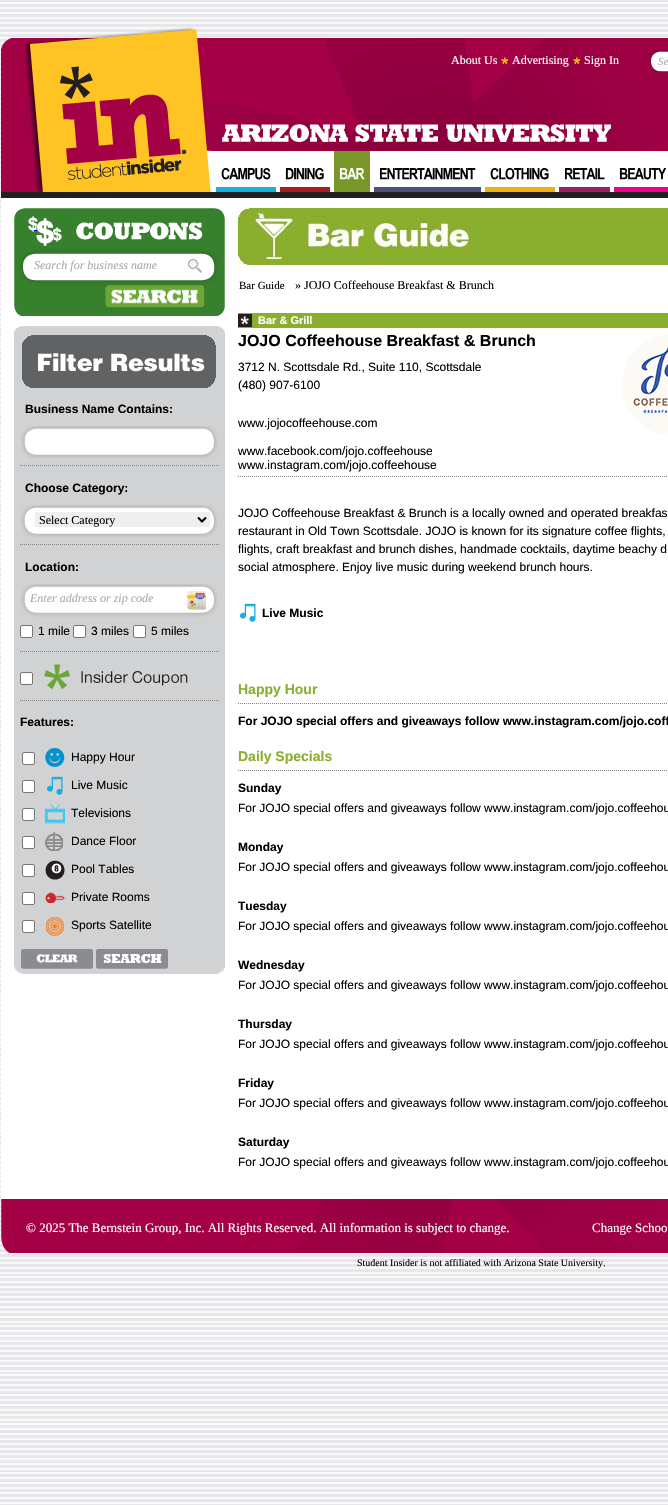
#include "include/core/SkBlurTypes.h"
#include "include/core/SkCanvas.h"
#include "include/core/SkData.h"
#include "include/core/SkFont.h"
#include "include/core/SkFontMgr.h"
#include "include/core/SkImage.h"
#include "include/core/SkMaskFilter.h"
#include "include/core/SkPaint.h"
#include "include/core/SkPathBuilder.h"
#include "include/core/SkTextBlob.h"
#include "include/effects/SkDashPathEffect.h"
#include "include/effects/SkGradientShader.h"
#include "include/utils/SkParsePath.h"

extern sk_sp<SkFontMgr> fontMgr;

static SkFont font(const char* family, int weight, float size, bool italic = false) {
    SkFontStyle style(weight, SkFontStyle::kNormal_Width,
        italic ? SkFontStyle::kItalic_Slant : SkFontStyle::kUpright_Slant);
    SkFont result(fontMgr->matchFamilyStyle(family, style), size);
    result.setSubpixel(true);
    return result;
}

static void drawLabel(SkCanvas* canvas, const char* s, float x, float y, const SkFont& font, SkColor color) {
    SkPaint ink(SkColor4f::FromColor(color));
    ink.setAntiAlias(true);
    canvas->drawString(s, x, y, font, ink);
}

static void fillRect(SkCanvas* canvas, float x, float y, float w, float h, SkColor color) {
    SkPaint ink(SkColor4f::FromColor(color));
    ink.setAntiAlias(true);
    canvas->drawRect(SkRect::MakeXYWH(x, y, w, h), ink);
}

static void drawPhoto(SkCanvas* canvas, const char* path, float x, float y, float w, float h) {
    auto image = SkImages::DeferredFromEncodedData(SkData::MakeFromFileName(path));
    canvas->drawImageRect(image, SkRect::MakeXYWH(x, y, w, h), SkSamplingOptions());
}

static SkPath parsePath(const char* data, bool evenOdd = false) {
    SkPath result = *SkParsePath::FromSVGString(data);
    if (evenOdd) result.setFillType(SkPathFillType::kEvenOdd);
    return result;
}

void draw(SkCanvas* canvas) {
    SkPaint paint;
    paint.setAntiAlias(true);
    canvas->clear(0xFFFFFFFF);
    drawPhoto(canvas, "assets/img1.png", 0, 0, 668, 1505);
    drawPhoto(canvas, "assets/img2.png", 1, 38, 667, 154);
    fillRect(canvas, 1, 192, 667, 6, 0xFF231F20);
    drawPhoto(canvas, "assets/img3.png", 25, 27, 186, 165);
    SkFont font1 = font("Liberation Serif", 400, 12);
    drawLabel(canvas, "About Us", 451, 64, font1, 0xFFFFFFFF);
    drawPhoto(canvas, "assets/img4.png", 501, 57, 7, 7);
    drawLabel(canvas, "Advertising", 512, 64, font1, 0xFFFFFFFF);
    drawPhoto(canvas, "assets/img5.png", 573, 57, 7, 7);
    drawLabel(canvas, "Sign In", 584, 64, font1, 0xFFFFFFFF);
    drawPhoto(canvas, "assets/img6.png", 648, 49, 20, 25);
    SkFont font2 = font("Liberation Serif", 400, 11, true);
    drawLabel(canvas, "Se", 658, 65, font2, 0xFFAAAAAA);
    fillRect(canvas, 211, 151, 457, 41, 0xFFFFFFFF);
    drawPhoto(canvas, "assets/img7.png", 222, 124, 389, 18);
    fillRect(canvas, 216, 187, 60, 5, 0xFF15B0DE);
    drawPhoto(canvas, "assets/img8.png", 221, 168, 50, 12);
    fillRect(canvas, 280, 187, 50, 5, 0xFFAA1C21);
    drawPhoto(canvas, "assets/img9.png", 285, 168, 39, 12);
    fillRect(canvas, 334, 151, 36, 41, 0xFF789728);
    drawPhoto(canvas, "assets/img10.png", 339, 168, 26, 12);
    fillRect(canvas, 374, 187, 107, 5, 0xFF50507D);
    drawPhoto(canvas, "assets/img11.png", 380, 168, 96, 12);
    fillRect(canvas, 485, 187, 70, 5, 0xFFEFB111);
    drawPhoto(canvas, "assets/img12.png", 490, 168, 59, 12);
    fillRect(canvas, 559, 187, 51, 5, 0xFF9F1F63);
    drawPhoto(canvas, "assets/img13.png", 565, 168, 40, 12);
    fillRect(canvas, 614, 187, 54, 5, 0xFFEC008C);
    drawPhoto(canvas, "assets/img14.png", 619, 168, 48, 12);
    fillRect(canvas, 1, 198, 667, 1001, 0xFFFFFFFF);
    drawPhoto(canvas, "assets/img15.png", 14, 208, 211, 108);
    fillRect(canvas, 34, 230, 3, 1, 0xFF0000EE);
    drawPhoto(canvas, "assets/img16.png", 188, 259, 14, 14);
    SkFont font3 = font("Liberation Serif", 400, 12, true);
    drawLabel(canvas, "Search for business name", 34, 269, font3, 0xFFAAAAAA);
    drawPhoto(canvas, "assets/img17.png", 105, 285, 100, 23);
    fillRect(canvas, 14, 333, 211, 634, 0xFFD1D2D4);
    drawPhoto(canvas, "assets/img18.png", 14, 967, 211, 7);
    drawPhoto(canvas, "assets/img19.png", 14, 326, 211, 7);
    drawPhoto(canvas, "assets/img20.png", 22, 335, 194, 53);
    SkFont font4 = font("Liberation Sans", 700, 12);
    drawLabel(canvas, "Business Name Contains:", 25, 413, font4, 0xFF000000);
    drawPhoto(canvas, "assets/img21.png", 21, 426, 197, 33);
    paint.setStroke(true);
    paint.setStrokeWidth(1);
    paint.setColor(0xFF848182);
    paint.setPathEffect(SkDashPathEffect::Make({{1, 1}}, 0));
    canvas->drawPath(parsePath("M20 465.5H219"), paint);
    paint.setPathEffect(nullptr);
    drawLabel(canvas, "Choose Category:", 25, 492, font4, 0xFF000000);
    drawPhoto(canvas, "assets/img21.png", 21, 505, 197, 33);
    fillRect(canvas, 35, 512, 175, 15, 0xFFEFEFEF);
    paint.setStrokeWidth(2);
    paint.setColor(0xFF000000);
    canvas->drawPath(parsePath("M198 517.5L202 521.5L206 517.5"), paint);
    drawLabel(canvas, "Select Category", 39, 524, font1, 0xFF000000);
    paint.setStrokeWidth(1);
    paint.setColor(0xFF848182);
    paint.setPathEffect(SkDashPathEffect::Make({{1, 1}}, 0));
    canvas->drawPath(parsePath("M20 544.5H219"), paint);
    paint.setPathEffect(nullptr);
    drawLabel(canvas, "Location:", 25, 571, font4, 0xFF000000);
    drawPhoto(canvas, "assets/img21.png", 21, 584, 197, 33);
    drawLabel(canvas, "Enter address or zip code", 30, 602, font3, 0xFFAAAAAA);
    drawPhoto(canvas, "assets/img22.png", 187, 591, 19, 19);
    paint.setStroke(false);
    paint.setColor(0xFFFFFFFF);
    canvas->drawRoundRect(SkRect::MakeXYWH(20.5f, 625.5f, 12, 12), 1.5f, 1.5f, paint);
    paint.setStroke(true);
    paint.setColor(0xFF767676);
    canvas->drawRoundRect(SkRect::MakeXYWH(20.5f, 625.5f, 12, 12), 1.5f, 1.5f, paint);
    SkFont font5 = font("Liberation Sans", 400, 12);
    drawLabel(canvas, "1 mile", 38, 635, font5, 0xFF000000);
    paint.setStroke(false);
    paint.setColor(0xFFFFFFFF);
    canvas->drawRoundRect(SkRect::MakeXYWH(73.5f, 625.5f, 12, 12), 1.5f, 1.5f, paint);
    paint.setStroke(true);
    paint.setColor(0xFF767676);
    canvas->drawRoundRect(SkRect::MakeXYWH(73.5f, 625.5f, 12, 12), 1.5f, 1.5f, paint);
    drawLabel(canvas, "3 miles", 91, 635, font5, 0xFF000000);
    paint.setStroke(false);
    paint.setColor(0xFFFFFFFF);
    canvas->drawRoundRect(SkRect::MakeXYWH(133.5f, 625.5f, 12, 12), 1.5f, 1.5f, paint);
    paint.setStroke(true);
    paint.setColor(0xFF767676);
    canvas->drawRoundRect(SkRect::MakeXYWH(133.5f, 625.5f, 12, 12), 1.5f, 1.5f, paint);
    drawLabel(canvas, "5 miles", 151, 635, font5, 0xFF000000);
    paint.setColor(0xFF848182);
    paint.setPathEffect(SkDashPathEffect::Make({{1, 1}}, 0));
    canvas->drawPath(parsePath("M20 651.5H219"), paint);
    paint.setPathEffect(nullptr);
    paint.setStroke(false);
    paint.setColor(0xFFFFFFFF);
    canvas->drawRoundRect(SkRect::MakeXYWH(20.5f, 672.5f, 12, 12), 1.5f, 1.5f, paint);
    paint.setStroke(true);
    paint.setColor(0xFF767676);
    canvas->drawRoundRect(SkRect::MakeXYWH(20.5f, 672.5f, 12, 12), 1.5f, 1.5f, paint);
    drawPhoto(canvas, "assets/img23.png", 44, 664, 144, 25);
    paint.setColor(0xFF848182);
    paint.setPathEffect(SkDashPathEffect::Make({{1, 1}}, 0));
    canvas->drawPath(parsePath("M20 700.5H219"), paint);
    paint.setPathEffect(nullptr);
    drawLabel(canvas, "Features:", 20, 726, font4, 0xFF000000);
    paint.setStroke(false);
    paint.setColor(0xFFFFFFFF);
    canvas->drawRoundRect(SkRect::MakeXYWH(22.5f, 752.5f, 12, 12), 1.5f, 1.5f, paint);
    paint.setStroke(true);
    paint.setColor(0xFF767676);
    canvas->drawRoundRect(SkRect::MakeXYWH(22.5f, 752.5f, 12, 12), 1.5f, 1.5f, paint);
    drawPhoto(canvas, "assets/img24.png", 45, 748, 20, 19);
    drawLabel(canvas, "Happy Hour", 71, 761, font5, 0xFF000000);
    paint.setStroke(false);
    paint.setColor(0xFFFFFFFF);
    canvas->drawRoundRect(SkRect::MakeXYWH(22.5f, 780.5f, 12, 12), 1.5f, 1.5f, paint);
    paint.setStroke(true);
    paint.setColor(0xFF767676);
    canvas->drawRoundRect(SkRect::MakeXYWH(22.5f, 780.5f, 12, 12), 1.5f, 1.5f, paint);
    drawPhoto(canvas, "assets/img25.png", 47, 776, 16, 19);
    drawLabel(canvas, "Live Music", 71, 789, font5, 0xFF000000);
    paint.setStroke(false);
    paint.setColor(0xFFFFFFFF);
    canvas->drawRoundRect(SkRect::MakeXYWH(22.5f, 808.5f, 12, 12), 1.5f, 1.5f, paint);
    paint.setStroke(true);
    paint.setColor(0xFF767676);
    canvas->drawRoundRect(SkRect::MakeXYWH(22.5f, 808.5f, 12, 12), 1.5f, 1.5f, paint);
    drawPhoto(canvas, "assets/img26.png", 45, 804, 20, 20);
    drawLabel(canvas, "Televisions", 71, 817, font5, 0xFF000000);
    paint.setStroke(false);
    paint.setColor(0xFFFFFFFF);
    canvas->drawRoundRect(SkRect::MakeXYWH(22.5f, 836.5f, 12, 12), 1.5f, 1.5f, paint);
    paint.setStroke(true);
    paint.setColor(0xFF767676);
    canvas->drawRoundRect(SkRect::MakeXYWH(22.5f, 836.5f, 12, 12), 1.5f, 1.5f, paint);
    drawPhoto(canvas, "assets/img27.png", 45, 832, 18, 19);
    drawLabel(canvas, "Dance Floor", 71, 845, font5, 0xFF000000);
    paint.setStroke(false);
    paint.setColor(0xFFFFFFFF);
    canvas->drawRoundRect(SkRect::MakeXYWH(22.5f, 864.5f, 12, 12), 1.5f, 1.5f, paint);
    paint.setStroke(true);
    paint.setColor(0xFF767676);
    canvas->drawRoundRect(SkRect::MakeXYWH(22.5f, 864.5f, 12, 12), 1.5f, 1.5f, paint);
    drawPhoto(canvas, "assets/img28.png", 45, 860, 20, 20);
    drawLabel(canvas, "Pool Tables", 71, 873, font5, 0xFF000000);
    paint.setStroke(false);
    paint.setColor(0xFFFFFFFF);
    canvas->drawRoundRect(SkRect::MakeXYWH(22.5f, 892.5f, 12, 12), 1.5f, 1.5f, paint);
    paint.setStroke(true);
    paint.setColor(0xFF767676);
    canvas->drawRoundRect(SkRect::MakeXYWH(22.5f, 892.5f, 12, 12), 1.5f, 1.5f, paint);
    drawPhoto(canvas, "assets/img29.png", 45, 892, 20, 11);
    drawLabel(canvas, "Private Rooms", 71, 901, font5, 0xFF000000);
    paint.setStroke(false);
    paint.setColor(0xFFFFFFFF);
    canvas->drawRoundRect(SkRect::MakeXYWH(22.5f, 920.5f, 12, 12), 1.5f, 1.5f, paint);
    paint.setStroke(true);
    paint.setColor(0xFF767676);
    canvas->drawRoundRect(SkRect::MakeXYWH(22.5f, 920.5f, 12, 12), 1.5f, 1.5f, paint);
    drawPhoto(canvas, "assets/img30.png", 46, 917, 18, 19);
    drawLabel(canvas, "Sports Satellite", 71, 929, font5, 0xFF000000);
    drawPhoto(canvas, "assets/img31.png", 21, 949, 72, 20);
    drawPhoto(canvas, "assets/img32.png", 96, 949, 72, 20);
    drawPhoto(canvas, "assets/img33.png", 238, 208, 430, 57);
    SkFont font6 = font("Liberation Serif", 400, 11);
    drawLabel(canvas, "Bar Guide", 239, 289, font6, 0xFF000000);
    drawLabel(canvas, "» JOJO Coffeehouse Breakfast & Brunch", 295, 289, font1, 0xFF000000);
    fillRect(canvas, 238, 313, 430, 15, 0xFF8AAE2E);
    drawPhoto(canvas, "assets/img34.png", 238, 314, 14, 13);
    SkFont font7 = font("Liberation Sans", 700, 11);
    drawLabel(canvas, "Bar & Grill", 258, 324, font7, 0xFFFFFFFF);
    paint.setColor(0xFF848182);
    paint.setPathEffect(SkDashPathEffect::Make({{1, 1}}, 0));
    canvas->drawPath(parsePath("M238 476.5H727"), paint);
    paint.setPathEffect(nullptr);
    SkFont font8 = font("Liberation Sans", 700, 16);
    drawLabel(canvas, "JOJO Coffeehouse Breakfast & Brunch", 238, 346, font8, 0xFF000000);
    drawLabel(canvas, "3712 N. Scottsdale Rd., Suite 110, Scottsdale", 238, 371, font5, 0xFF000000);
    drawLabel(canvas, "(480) 907-6100", 238, 389, font5, 0xFF000000);
    drawLabel(canvas, "www.jojocoffeehouse.com", 238, 427, font5, 0xFF000000);
    drawLabel(canvas, "www.facebook.com/jojo.coffeehouse", 238, 455, font5, 0xFF000000);
    drawLabel(canvas, "www.instagram.com/jojo.coffeehouse", 238, 469, font5, 0xFF000000);
    drawPhoto(canvas, "assets/img35.png", 621, 333, 47, 103);
    drawLabel(canvas, "JOJO Coffeehouse Breakfast & Brunch is a locally owned and operated breakfas", 238, 517, font5, 0xFF000000);
    drawLabel(canvas, "restaurant in Old Town Scottsdale. JOJO is known for its signature coffee flights,", 238, 535, font5, 0xFF000000);
    drawLabel(canvas, "flights, craft breakfast and brunch dishes, handmade cocktails, daytime beachy d", 238, 553, font5, 0xFF000000);
    drawLabel(canvas, "social atmosphere. Enjoy live music during weekend brunch hours.", 238, 571, font5, 0xFF000000);
    drawPhoto(canvas, "assets/img36.png", 240, 603, 16, 19);
    drawLabel(canvas, "Live Music", 262, 617, font4, 0xFF000000);
    SkFont font9 = font("Liberation Sans", 700, 14);
    drawLabel(canvas, "Happy Hour", 238, 694, font9, 0xFF8AAE2E);
    paint.setPathEffect(SkDashPathEffect::Make({{1, 1}}, 0));
    canvas->drawPath(parsePath("M238 703.5H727"), paint);
    paint.setPathEffect(nullptr);
    drawLabel(canvas, "For JOJO special offers and giveaways follow www.instagram.com/jojo.coff", 238, 725, font4, 0xFF000000);
    drawLabel(canvas, "Daily Specials", 238, 761, font9, 0xFF8AAE2E);
    paint.setPathEffect(SkDashPathEffect::Make({{1, 1}}, 0));
    canvas->drawPath(parsePath("M238 770.5H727"), paint);
    paint.setPathEffect(nullptr);
    drawLabel(canvas, "Sunday", 238, 792, font4, 0xFF000000);
    drawLabel(canvas, "For JOJO special offers and giveaways follow www.instagram.com/jojo.coffeehou", 238, 812, font5, 0xFF000000);
    drawLabel(canvas, "Monday", 238, 851, font4, 0xFF000000);
    drawLabel(canvas, "For JOJO special offers and giveaways follow www.instagram.com/jojo.coffeehou", 238, 871, font5, 0xFF000000);
    drawLabel(canvas, "Tuesday", 238, 910, font4, 0xFF000000);
    drawLabel(canvas, "For JOJO special offers and giveaways follow www.instagram.com/jojo.coffeehou", 238, 930, font5, 0xFF000000);
    drawLabel(canvas, "Wednesday", 238, 969, font4, 0xFF000000);
    drawLabel(canvas, "For JOJO special offers and giveaways follow www.instagram.com/jojo.coffeehou", 238, 989, font5, 0xFF000000);
    drawLabel(canvas, "Thursday", 238, 1028, font4, 0xFF000000);
    drawLabel(canvas, "For JOJO special offers and giveaways follow www.instagram.com/jojo.coffeehou", 238, 1048, font5, 0xFF000000);
    drawLabel(canvas, "Friday", 238, 1087, font4, 0xFF000000);
    drawLabel(canvas, "For JOJO special offers and giveaways follow www.instagram.com/jojo.coffeehou", 238, 1107, font5, 0xFF000000);
    drawLabel(canvas, "Saturday", 238, 1146, font4, 0xFF000000);
    drawLabel(canvas, "For JOJO special offers and giveaways follow www.instagram.com/jojo.coffeehou", 238, 1166, font5, 0xFF000000);
    drawPhoto(canvas, "assets/img37.png", 1, 1199, 667, 54);
    SkFont font10 = font("Liberation Serif", 400, 13);
    drawLabel(canvas, "© 2025 The Bernstein Group, Inc. All Rights Reserved. All information is subject to change.", 26, 1232, font10, 0xFFFFFFFF);
    drawLabel(canvas, "Change Schoo", 592, 1232, font10, 0xFFFFFFFF);
    SkFont font11 = font("Liberation Serif", 400, 10);
    drawLabel(canvas, "Student Insider is not affiliated with Arizona State University.", 357, 1266, font11, 0xFF000000);
}
